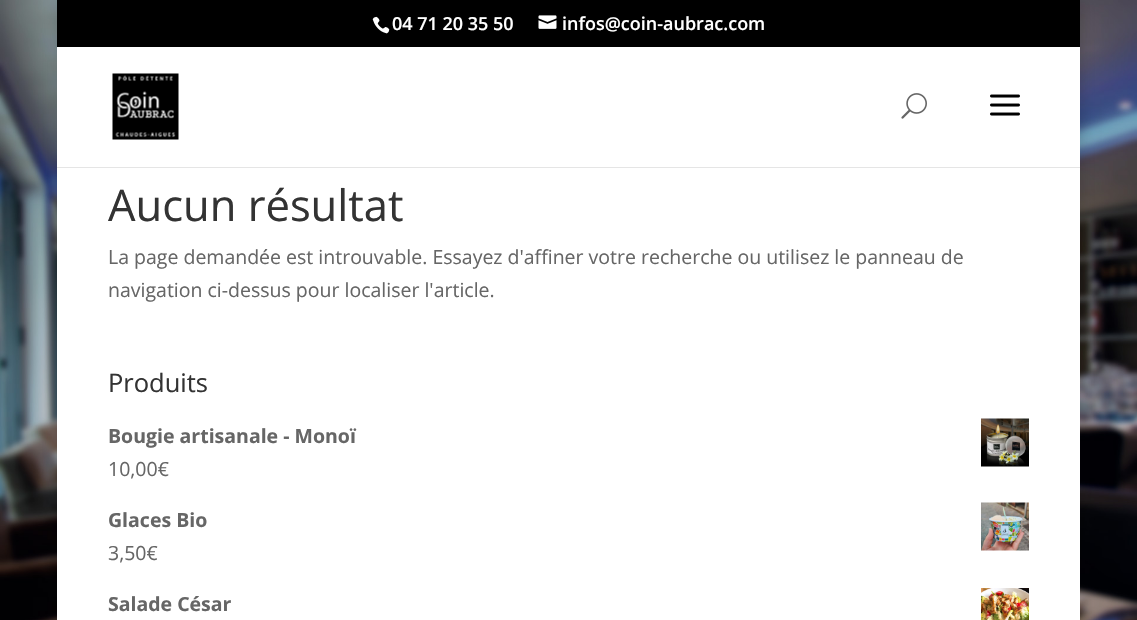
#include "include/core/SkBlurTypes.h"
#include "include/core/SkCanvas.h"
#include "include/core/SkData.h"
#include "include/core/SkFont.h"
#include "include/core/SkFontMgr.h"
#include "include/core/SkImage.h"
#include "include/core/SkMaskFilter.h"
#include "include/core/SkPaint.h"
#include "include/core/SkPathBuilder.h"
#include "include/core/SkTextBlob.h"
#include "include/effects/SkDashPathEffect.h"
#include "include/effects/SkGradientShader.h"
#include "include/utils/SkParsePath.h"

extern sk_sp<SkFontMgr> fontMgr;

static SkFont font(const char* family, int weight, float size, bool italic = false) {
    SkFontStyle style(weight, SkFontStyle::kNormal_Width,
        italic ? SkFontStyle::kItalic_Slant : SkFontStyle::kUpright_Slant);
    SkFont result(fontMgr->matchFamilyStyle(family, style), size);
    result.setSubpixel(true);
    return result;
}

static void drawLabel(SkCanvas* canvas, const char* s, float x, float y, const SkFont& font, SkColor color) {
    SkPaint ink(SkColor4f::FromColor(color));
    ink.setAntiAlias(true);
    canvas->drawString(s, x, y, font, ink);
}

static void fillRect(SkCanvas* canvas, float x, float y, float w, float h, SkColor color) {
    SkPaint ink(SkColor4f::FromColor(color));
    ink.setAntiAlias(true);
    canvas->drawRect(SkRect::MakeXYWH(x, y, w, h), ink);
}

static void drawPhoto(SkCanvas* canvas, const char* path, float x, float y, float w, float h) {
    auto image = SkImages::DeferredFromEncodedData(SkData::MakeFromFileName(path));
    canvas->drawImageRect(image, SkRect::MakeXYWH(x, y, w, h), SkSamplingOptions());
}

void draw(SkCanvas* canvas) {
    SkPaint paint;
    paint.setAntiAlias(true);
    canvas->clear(0xFFFFFFFF);
    drawPhoto(canvas, "assets/img1.png", 0, 0, 1137, 620);
    paint.setColor(0x33000000);
    paint.setMaskFilter(SkMaskFilter::MakeBlur(kNormal_SkBlurStyle, 7.5f));
    canvas->drawRect(SkRect::MakeXYWH(57, 0, 1023, 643), paint);
    paint.setMaskFilter(nullptr);
    fillRect(canvas, 57, 0, 1023, 47, 0xFF000000);
    drawPhoto(canvas, "assets/img2.png", 372, 16, 18, 18);
    SkFont font1 = font("Open Sans", 600, 18);
    drawLabel(canvas, "04 71 20 35 50", 392, 30, font1, 0xFFFFFFFF);
    drawPhoto(canvas, "assets/img3.png", 538, 15, 19, 14);
    drawLabel(canvas, "infos@coin-aubrac.com", 562, 30, font1, 0xFFFFFFFF);
    fillRect(canvas, 57, 47, 1023, 573, 0xFFFFFFFF);
    fillRect(canvas, 57, 167, 1023, 1, 0x1A000000);
    drawPhoto(canvas, "assets/img4.png", 112, 73, 67, 67);
    drawPhoto(canvas, "assets/img5.png", 901, 93, 26, 26);
    drawPhoto(canvas, "assets/img6.png", 990, 94, 30, 22);
    SkFont font2 = font("Open Sans", 400, 43.5f);
    drawLabel(canvas, "Aucun résultat", 108, 221, font2, 0xFF333333);
    SkFont font3 = font("Open Sans", 400, 19.5f);
    drawLabel(canvas, "La page demandée est introuvable. Essayez d'affiner votre recherche ou utilisez le panneau de", 108, 264, font3, 0xFF666666);
    drawLabel(canvas, "navigation ci-dessus pour localiser l'article.", 108, 297, font3, 0xFF666666);
    SkFont font4 = font("Open Sans", 400, 25.5f);
    drawLabel(canvas, "Produits", 108, 392, font4, 0xFF333333);
    SkFont font5 = font("Open Sans", 700, 19.5f);
    drawLabel(canvas, "Bougie artisanale - Monoï", 108, 443, font5, 0xFF666666);
    drawPhoto(canvas, "assets/img7.png", 981, 418, 48, 49);
    drawLabel(canvas, "10,00€", 108, 476, font3, 0xFF666666);
    drawLabel(canvas, "Glaces Bio", 108, 527, font5, 0xFF666666);
    drawPhoto(canvas, "assets/img8.png", 981, 502, 48, 49);
    drawLabel(canvas, "3,50€", 108, 560, font3, 0xFF666666);
    drawLabel(canvas, "Salade César", 108, 611, font5, 0xFF666666);
    drawPhoto(canvas, "assets/img9.png", 981, 588, 48, 32);
}
